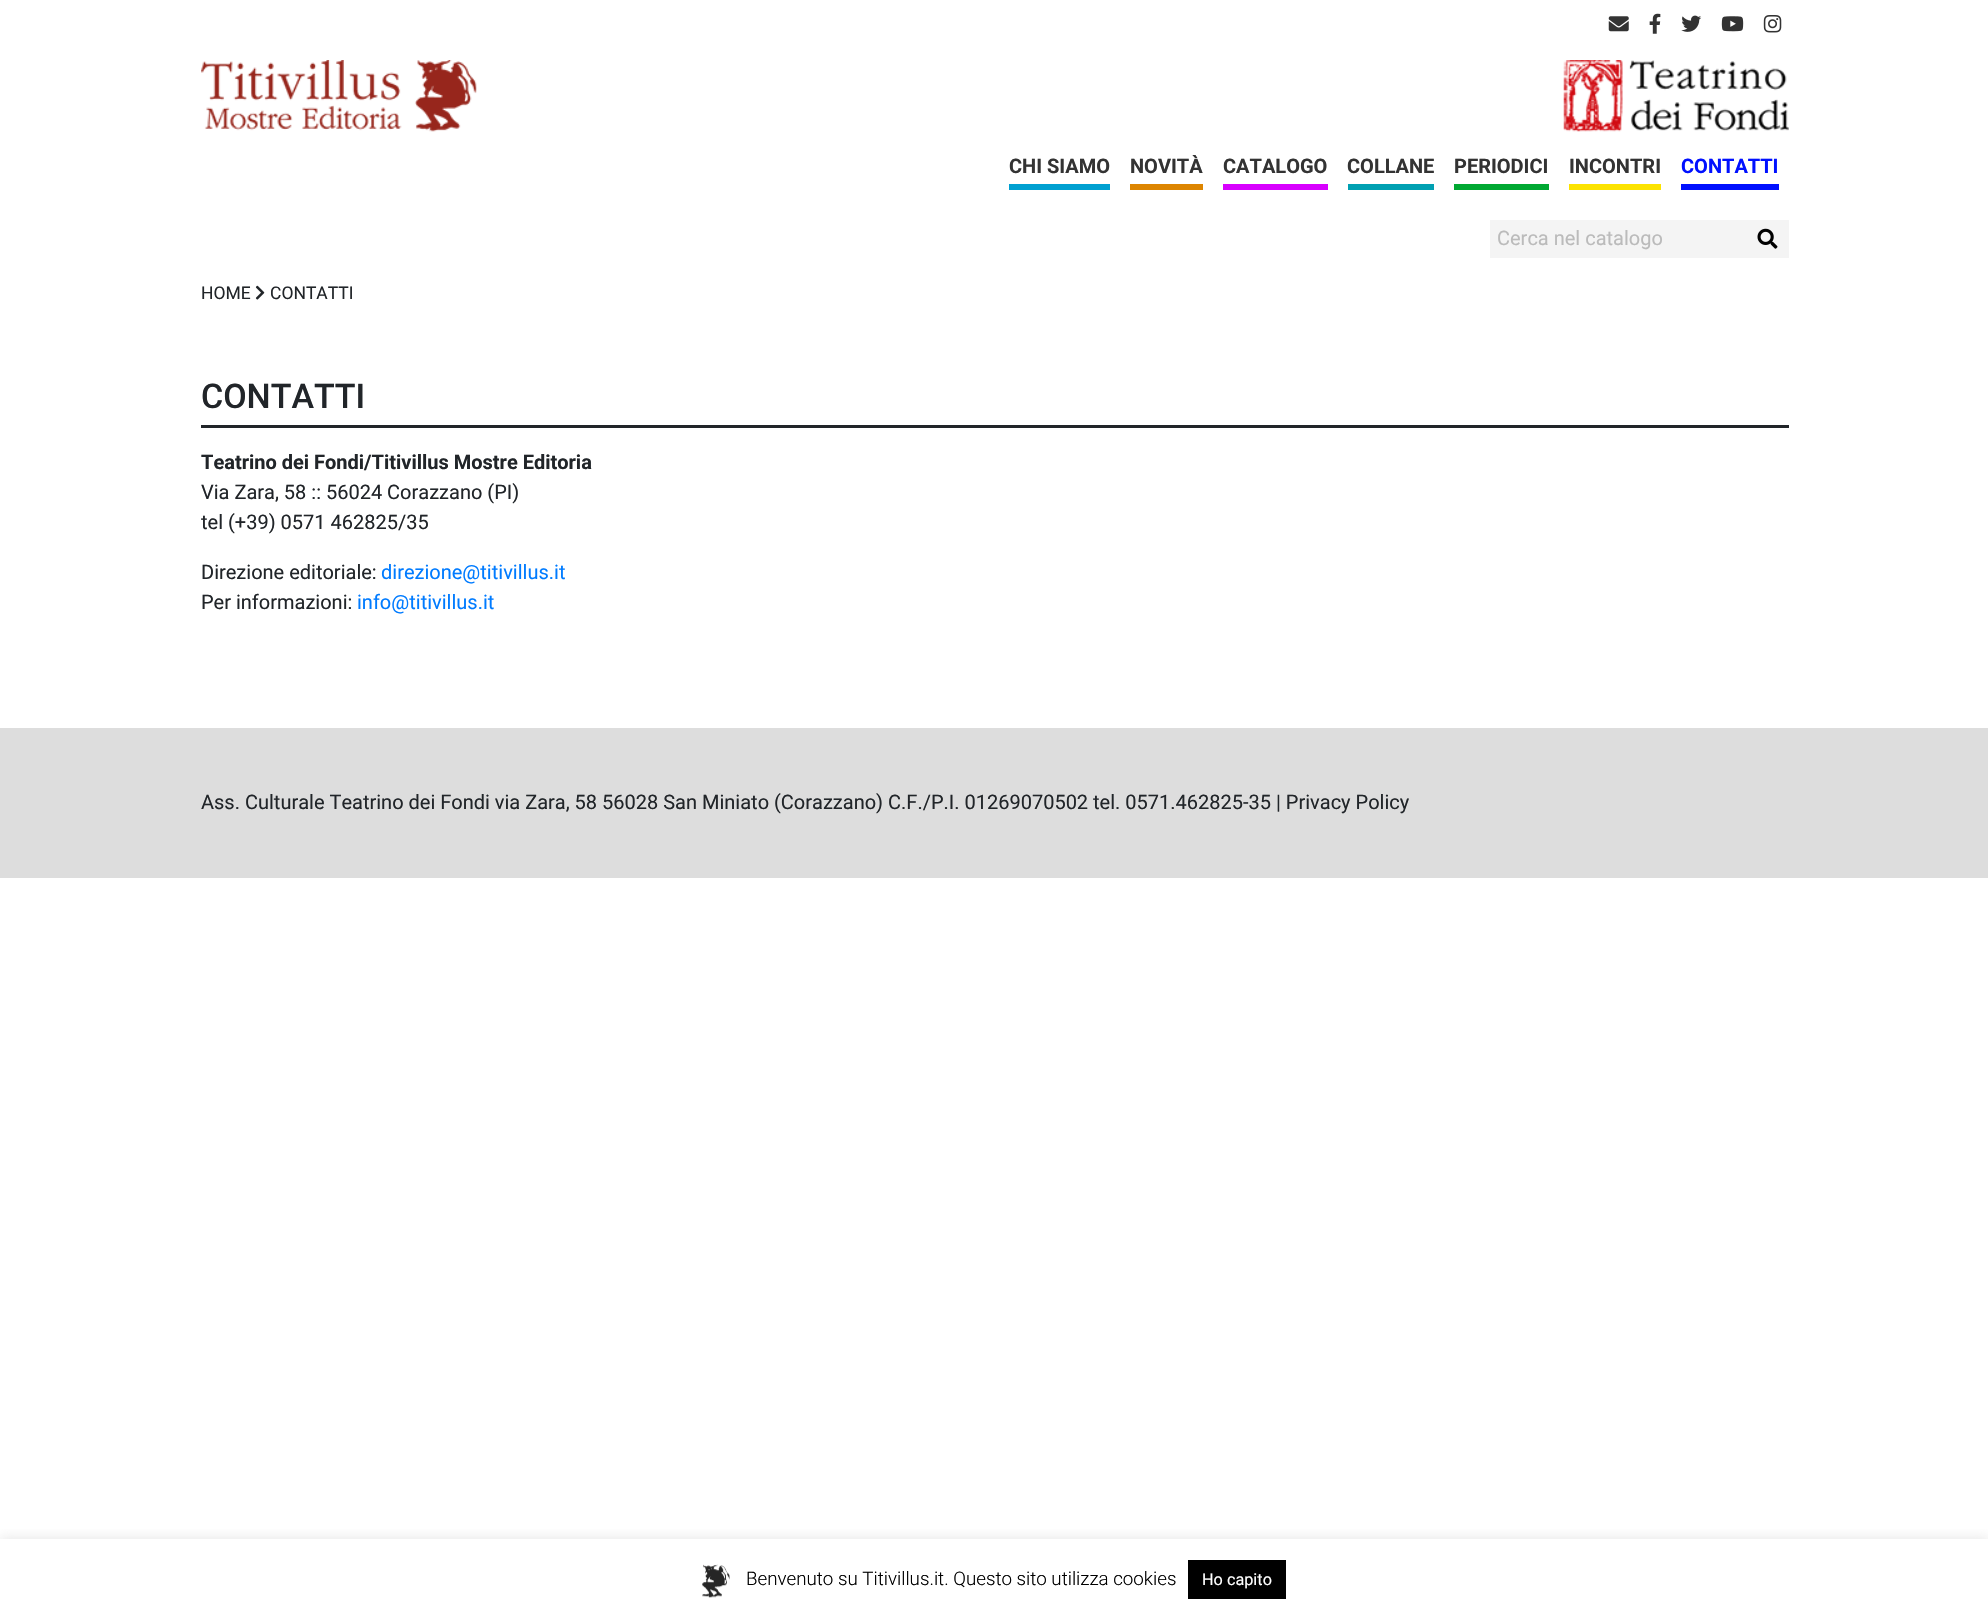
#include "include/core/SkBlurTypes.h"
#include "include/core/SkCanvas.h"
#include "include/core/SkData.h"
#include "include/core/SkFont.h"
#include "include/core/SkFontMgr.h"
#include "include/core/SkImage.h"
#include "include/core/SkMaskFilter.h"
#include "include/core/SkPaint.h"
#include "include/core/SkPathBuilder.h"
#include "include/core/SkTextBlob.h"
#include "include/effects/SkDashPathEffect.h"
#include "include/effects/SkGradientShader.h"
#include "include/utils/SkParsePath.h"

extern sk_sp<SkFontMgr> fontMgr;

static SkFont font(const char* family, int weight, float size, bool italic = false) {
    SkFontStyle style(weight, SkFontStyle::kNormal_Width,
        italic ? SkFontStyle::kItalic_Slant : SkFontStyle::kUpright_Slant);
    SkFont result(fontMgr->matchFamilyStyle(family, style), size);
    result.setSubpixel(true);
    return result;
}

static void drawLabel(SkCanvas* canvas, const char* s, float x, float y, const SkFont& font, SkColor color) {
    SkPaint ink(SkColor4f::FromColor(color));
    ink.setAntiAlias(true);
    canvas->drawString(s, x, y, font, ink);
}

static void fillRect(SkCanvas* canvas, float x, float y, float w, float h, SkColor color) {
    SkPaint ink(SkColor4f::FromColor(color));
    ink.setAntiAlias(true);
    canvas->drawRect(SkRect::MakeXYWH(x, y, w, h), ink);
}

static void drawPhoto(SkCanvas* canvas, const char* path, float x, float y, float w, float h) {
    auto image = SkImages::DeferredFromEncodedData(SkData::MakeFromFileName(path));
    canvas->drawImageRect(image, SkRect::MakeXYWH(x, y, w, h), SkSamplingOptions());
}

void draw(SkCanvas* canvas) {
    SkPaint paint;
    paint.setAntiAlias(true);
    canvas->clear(0xFFFFFFFF);
    drawPhoto(canvas, "assets/img1.png", 1608, 16, 21, 16);
    drawPhoto(canvas, "assets/img2.png", 1649, 13, 12, 21);
    drawPhoto(canvas, "assets/img3.png", 1681, 15, 21, 17);
    drawPhoto(canvas, "assets/img4.png", 1721, 16, 23, 16);
    drawPhoto(canvas, "assets/img5.png", 1763, 15, 19, 18);
    drawPhoto(canvas, "assets/img6.png", 201, 60, 276, 72);
    drawPhoto(canvas, "assets/img7.png", 1563, 60, 226, 72);
    SkFont font1 = font("Roboto", 700, 20);
    drawLabel(canvas, "CHI SIAMO", 1009, 173, font1, 0xFF333333);
    fillRect(canvas, 1009, 184, 101, 6, 0xFF00A0D1);
    drawLabel(canvas, "NOVITÀ", 1130, 173, font1, 0xFF333333);
    fillRect(canvas, 1130, 184, 73, 6, 0xFFDD8500);
    drawLabel(canvas, "CATALOGO", 1223, 173, font1, 0xFF333333);
    fillRect(canvas, 1223, 184, 105, 6, 0xFFD800FF);
    drawLabel(canvas, "COLLANE", 1347, 173, font1, 0xFF333333);
    fillRect(canvas, 1348, 184, 86, 6, 0xFF00A0B2);
    drawLabel(canvas, "PERIODICI", 1454, 173, font1, 0xFF333333);
    fillRect(canvas, 1454, 184, 95, 6, 0xFF00A832);
    drawLabel(canvas, "INCONTRI", 1569, 173, font1, 0xFF333333);
    fillRect(canvas, 1569, 184, 92, 6, 0xFFFCE300);
    drawLabel(canvas, "CONTATTI", 1681, 173, font1, 0xFF0010FF);
    fillRect(canvas, 1681, 184, 98, 6, 0xFF0010FF);
    fillRect(canvas, 1490, 220, 299, 38, 0xFFF4F4F4);
    SkFont font2 = font("Roboto", 400, 20);
    drawLabel(canvas, "Cerca nel catalogo", 1497, 245, font2, 0xFFBBBBBB);
    drawPhoto(canvas, "assets/img8.png", 1757, 228, 21, 21);
    SkFont font3 = font("Roboto", 400, 17.5f);
    drawLabel(canvas, "HOME", 201, 299, font3, 0xFF212529);
    drawPhoto(canvas, "assets/img9.png", 255, 285, 10, 15);
    drawLabel(canvas, "CONTATTI", 270, 299, font3, 0xFF212529);
    fillRect(canvas, 201, 425, 1588, 3, 0xFF212529);
    SkFont font4 = font("Roboto", 500, 34);
    drawLabel(canvas, "CONTATTI", 201, 408, font4, 0xFF212529);
    drawLabel(canvas, "Teatrino dei Fondi/Titivillus Mostre Editoria", 201, 469, font1, 0xFF212529);
    drawLabel(canvas, "Via Zara, 58 :: 56024 Corazzano (PI)", 201, 499, font2, 0xFF212529);
    drawLabel(canvas, "tel (+39) 0571 462825/35", 201, 529, font2, 0xFF212529);
    drawLabel(canvas, "Direzione editoriale:", 201, 579, font2, 0xFF212529);
    drawLabel(canvas, "direzione@titivillus.it", 381, 579, font2, 0xFF007BFF);
    drawLabel(canvas, "Per informazioni:", 201, 609, font2, 0xFF212529);
    drawLabel(canvas, "info@titivillus.it", 357, 609, font2, 0xFF007BFF);
    fillRect(canvas, 0, 728, 1988, 150, 0xFFDDDDDD);
    drawLabel(canvas, "Ass. Culturale Teatrino dei Fondi via Zara, 58 56028 San Miniato (Corazzano) C.F./P.I. 01269070502 tel. 0571.462825-35 | Privacy Policy", 201, 809, font2, 0xFF212529);
    canvas->save();
    canvas->clipRect(SkRect::MakeXYWH(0, 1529, 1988, 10));
    paint.setColor(0x4DACABAB);
    paint.setMaskFilter(SkMaskFilter::MakeBlur(kNormal_SkBlurStyle, 6));
    canvas->drawRect(SkRect::MakeXYWH(0, 1538, 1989, 81), paint);
    paint.setMaskFilter(nullptr);
    canvas->restore();
    drawPhoto(canvas, "assets/img10.png", 702, 1564, 28, 34);
    SkFont font5 = font("Roboto", 300, 18.75f);
    drawLabel(canvas, "Benvenuto su Titivillus.it. Questo sito utilizza cookies", 746, 1585, font5, 0xFF000000);
    fillRect(canvas, 1188, 1560, 98, 39, 0xFF000000);
    SkFont font6 = font("Roboto", 400, 16.25f);
    drawLabel(canvas, "Ho capito", 1202, 1585, font6, 0xFFFFFFFF);
}
